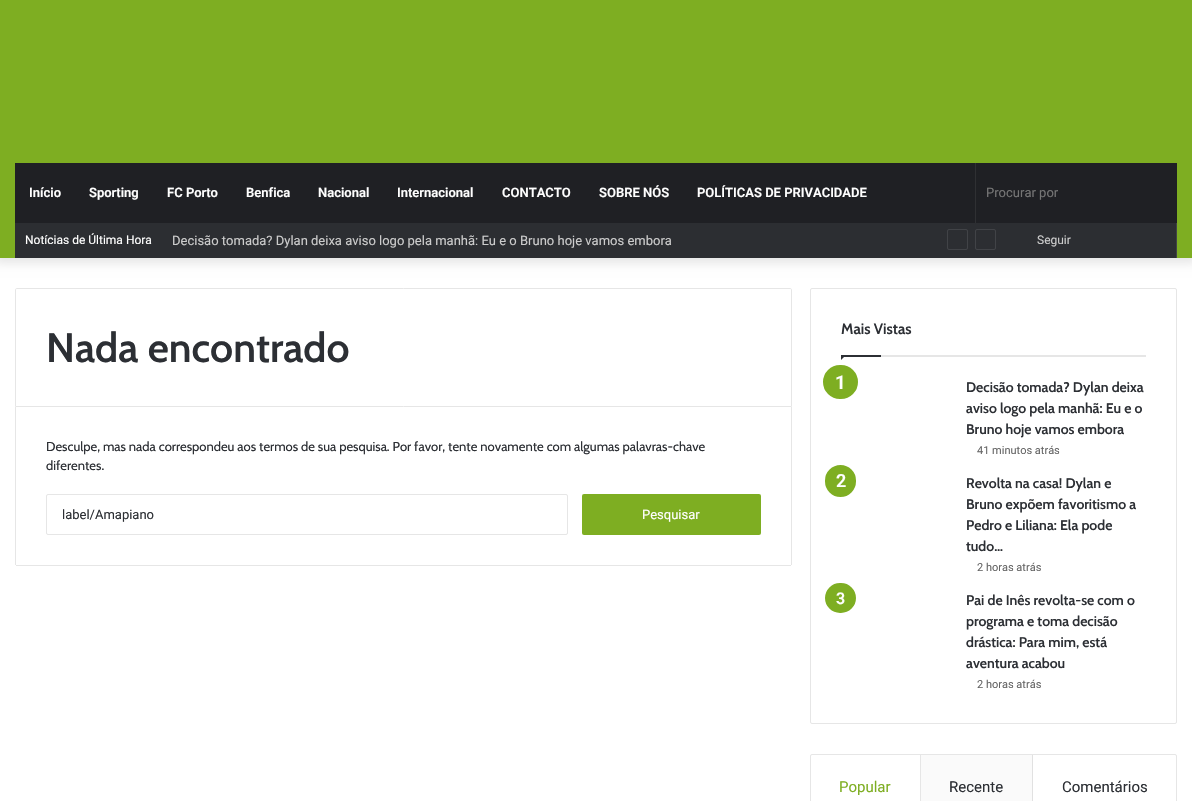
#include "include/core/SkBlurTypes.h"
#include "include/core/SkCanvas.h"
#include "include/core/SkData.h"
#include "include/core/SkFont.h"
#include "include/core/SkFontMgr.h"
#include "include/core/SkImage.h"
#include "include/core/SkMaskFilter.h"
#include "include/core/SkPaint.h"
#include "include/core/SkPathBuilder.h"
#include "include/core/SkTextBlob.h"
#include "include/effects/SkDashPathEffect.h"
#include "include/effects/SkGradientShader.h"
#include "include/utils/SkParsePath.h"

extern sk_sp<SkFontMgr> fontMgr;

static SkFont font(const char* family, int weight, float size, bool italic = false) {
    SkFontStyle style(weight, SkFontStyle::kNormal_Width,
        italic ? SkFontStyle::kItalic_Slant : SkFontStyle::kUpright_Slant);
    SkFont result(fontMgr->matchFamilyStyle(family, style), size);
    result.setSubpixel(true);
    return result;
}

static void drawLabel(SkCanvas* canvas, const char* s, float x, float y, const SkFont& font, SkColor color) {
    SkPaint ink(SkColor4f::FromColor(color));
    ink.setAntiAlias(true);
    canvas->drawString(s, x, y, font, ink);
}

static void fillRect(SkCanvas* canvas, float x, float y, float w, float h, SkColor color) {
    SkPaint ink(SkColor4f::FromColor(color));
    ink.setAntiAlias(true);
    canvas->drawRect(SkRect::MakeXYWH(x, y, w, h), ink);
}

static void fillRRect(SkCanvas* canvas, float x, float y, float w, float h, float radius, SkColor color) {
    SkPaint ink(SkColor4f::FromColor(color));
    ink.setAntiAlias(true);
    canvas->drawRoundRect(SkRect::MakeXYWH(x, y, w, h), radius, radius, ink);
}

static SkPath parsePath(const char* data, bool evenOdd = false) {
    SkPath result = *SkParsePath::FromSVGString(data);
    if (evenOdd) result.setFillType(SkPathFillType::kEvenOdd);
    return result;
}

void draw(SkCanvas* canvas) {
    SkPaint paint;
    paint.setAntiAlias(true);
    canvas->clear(0xFFFFFFFF);
    paint.setColor(0x1A000000);
    paint.setMaskFilter(SkMaskFilter::MakeBlur(kNormal_SkBlurStyle, 5));
    canvas->drawRect(SkRect::MakeXYWH(-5, -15, 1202, 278), paint);
    paint.setMaskFilter(nullptr);
    fillRect(canvas, 0, 0, 1192, 258, 0xFF7EAE22);
    fillRect(canvas, 15, 223, 1162, 35, 0xFF2C2E32);
    paint.setColor(0x1AFFFFFF);
    canvas->drawPath(parsePath("M1177 222V258H1176V223Z"), paint);
    fillRect(canvas, 15, 163, 1162, 60, 0xFF1F2024);
    SkFont font1 = font("Roboto", 600, 13);
    drawLabel(canvas, "Início", 29, 197, font1, 0xFFFFFFFF);
    drawLabel(canvas, "Sporting", 89, 197, font1, 0xFFFFFFFF);
    drawLabel(canvas, "FC Porto", 167, 197, font1, 0xFFFFFFFF);
    drawLabel(canvas, "Benfica", 246, 197, font1, 0xFFFFFFFF);
    drawLabel(canvas, "Nacional", 318, 197, font1, 0xFFFFFFFF);
    drawLabel(canvas, "Internacional", 397, 197, font1, 0xFFFFFFFF);
    drawLabel(canvas, "CONTACTO", 502, 197, font1, 0xFFFFFFFF);
    drawLabel(canvas, "SOBRE NÓS", 599, 197, font1, 0xFFFFFFFF);
    drawLabel(canvas, "POLÍTICAS DE PRIVACIDADE", 697, 197, font1, 0xFFFFFFFF);
    fillRect(canvas, 975, 163, 1, 60, 0xFF2F3033);
    SkFont font2 = font("Roboto", 400, 13);
    drawLabel(canvas, "Procurar por", 986, 197, font2, 0xFF757575);
    SkFont font3 = font("Roboto", 400, 12);
    drawLabel(canvas, "Notícias de Última Hora", 25, 244, font3, 0xFFFFFFFF);
    drawLabel(canvas, "Decisão tomada? Dylan deixa aviso logo pela manhã: Eu e o Bruno hoje vamos embora", 172, 245, font2, 0xFFCCCCCC);
    paint.setStroke(true);
    paint.setStrokeWidth(1);
    paint.setColor(0xFF414347);
    canvas->drawRoundRect(SkRect::MakeXYWH(947.5f, 229.5f, 20, 20), 1.5f, 1.5f, paint);
    canvas->drawRoundRect(SkRect::MakeXYWH(975.5f, 229.5f, 20, 20), 1.5f, 1.5f, paint);
    drawLabel(canvas, "Seguir", 1037, 244, font3, 0xFFCCCCCC);
    paint.setColor(0xFFE6E6E6);
    canvas->drawPath(parsePath("M17 288.5H790C791 288.5 791.5 289 791.5 290V406.5H15.5V290C15.5 289 16 288.5 17 288.5Z"), paint);
    SkFont font4 = font("Cabin", 600, 41);
    drawLabel(canvas, "Nada encontrado", 46, 362, font4, 0xFF2C2F34);
    fillRect(canvas, 791, 407, 1, 158, 0xFFE6E6E6);
    fillRect(canvas, 16, 565, 775, 1, 0xFFE6E6E6);
    fillRect(canvas, 15, 407, 1, 158, 0xFFE6E6E6);
    SkFont font5 = font("Cabin", 400, 13);
    drawLabel(canvas, "Desculpe, mas nada correspondeu aos termos de sua pesquisa. Por favor, tente novamente com algumas palavras-chave", 46, 451, font5, 0xFF2C2F34);
    drawLabel(canvas, "diferentes.", 46, 470, font5, 0xFF2C2F34);
    canvas->drawRoundRect(SkRect::MakeXYWH(46.5f, 494.5f, 521, 40), 1.5f, 1.5f, paint);
    drawLabel(canvas, "label/Amapiano", 62, 519, font2, 0xFF2C2F34);
    fillRRect(canvas, 582, 494, 179, 41, 2, 0xFF7EAE22);
    drawLabel(canvas, "Pesquisar", 642, 519, font2, 0xFFFFFFFF);
    canvas->drawRoundRect(SkRect::MakeXYWH(810.5f, 288.5f, 366, 435), 1.5f, 1.5f, paint);
    fillRect(canvas, 881, 355, 265, 2, 0xFFE6E6E6);
    SkFont font6 = font("Cabin", 600, 15);
    drawLabel(canvas, "Mais Vistas", 841, 334, font6, 0xFF2C2F34);
    paint.setStroke(false);
    paint.setColor(0xFF2C2F34);
    canvas->drawPath(parsePath("M841 355H846L841 360Z"), paint);
    fillRect(canvas, 841, 355, 40, 2, 0xFF2C2F34);
    paint.setColor(0xFF7EAE22);
    canvas->drawRoundRect(SkRect::MakeXYWH(821.5f, 363.5f, 38, 37), 18.5f, 18.5f, paint);
    paint.setStroke(true);
    paint.setStrokeWidth(3);
    paint.setColor(0xFFFFFFFF);
    canvas->drawRoundRect(SkRect::MakeXYWH(821.5f, 363.5f, 38, 37), 18.5f, 18.5f, paint);
    SkFont font7 = font("Roboto", 600, 19);
    drawLabel(canvas, "1", 835, 389, font7, 0xFFFFFFFF);
    SkFont font8 = font("Cabin", 600, 14);
    drawLabel(canvas, "Decisão tomada? Dylan deixa", 966, 392, font8, 0xFF2C2F34);
    drawLabel(canvas, "aviso logo pela manhã: Eu e o", 966, 413, font8, 0xFF2C2F34);
    drawLabel(canvas, "Bruno hoje vamos embora", 966, 434, font8, 0xFF2C2F34);
    SkFont font9 = font("Roboto", 400, 11);
    drawLabel(canvas, "41 minutos atrás", 977, 454, font9, 0xFF666666);
    paint.setStroke(false);
    paint.setColor(0xFF7EAE22);
    canvas->drawRoundRect(SkRect::MakeXYWH(823.5f, 463.5f, 34, 35), 17, 17, paint);
    paint.setStroke(true);
    paint.setColor(0xFFFFFFFF);
    canvas->drawRoundRect(SkRect::MakeXYWH(823.5f, 463.5f, 34, 35), 17, 17, paint);
    SkFont font10 = font("Roboto", 600, 18);
    drawLabel(canvas, "2", 836, 487, font10, 0xFFFFFFFF);
    drawLabel(canvas, "Revolta na casa! Dylan e", 966, 488, font8, 0xFF2C2F34);
    drawLabel(canvas, "Bruno expõem favoritismo a", 966, 509, font8, 0xFF2C2F34);
    drawLabel(canvas, "Pedro e Liliana: Ela pode", 966, 530, font8, 0xFF2C2F34);
    drawLabel(canvas, "tudo…", 966, 551, font8, 0xFF2C2F34);
    drawLabel(canvas, "2 horas atrás", 977, 571, font9, 0xFF666666);
    paint.setStroke(false);
    paint.setColor(0xFF7EAE22);
    canvas->drawRoundRect(SkRect::MakeXYWH(824, 582, 33, 32), 16, 16, paint);
    paint.setStroke(true);
    paint.setStrokeWidth(2);
    paint.setColor(0xFFFFFFFF);
    canvas->drawRoundRect(SkRect::MakeXYWH(824, 582, 33, 32), 16, 16, paint);
    SkFont font11 = font("Roboto", 600, 16);
    drawLabel(canvas, "3", 836, 604, font11, 0xFFFFFFFF);
    drawLabel(canvas, "Pai de Inês revolta-se com o", 966, 605, font8, 0xFF2C2F34);
    drawLabel(canvas, "programa e toma decisão", 966, 626, font8, 0xFF2C2F34);
    drawLabel(canvas, "drástica: Para mim, está", 966, 647, font8, 0xFF2C2F34);
    drawLabel(canvas, "aventura acabou", 966, 668, font8, 0xFF2C2F34);
    drawLabel(canvas, "2 horas atrás", 977, 688, font9, 0xFF666666);
    paint.setStrokeWidth(1);
    paint.setColor(0xFFE6E6E6);
    canvas->drawRoundRect(SkRect::MakeXYWH(810.5f, 754.5f, 366, 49), 1.5f, 1.5f, paint);
    paint.setStroke(false);
    canvas->drawPath(parsePath("M921 755V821L920 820V755Z"), paint);
    SkFont font12 = font("Roboto", 400, 15);
    drawLabel(canvas, "Popular", 839, 792, font12, 0xFF7EAE22);
    fillRect(canvas, 921, 755, 111, 46, 0xFFFAFAFA);
    paint.setColor(0xFFE1E1E1);
    canvas->drawPath(parsePath("M1033 755V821L1032 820V755Z"), paint);
    drawLabel(canvas, "Recente", 949, 792, font12, 0xFF2C2F34);
    drawLabel(canvas, "Comentários", 1062, 792, font12, 0xFF2C2F34);
}
